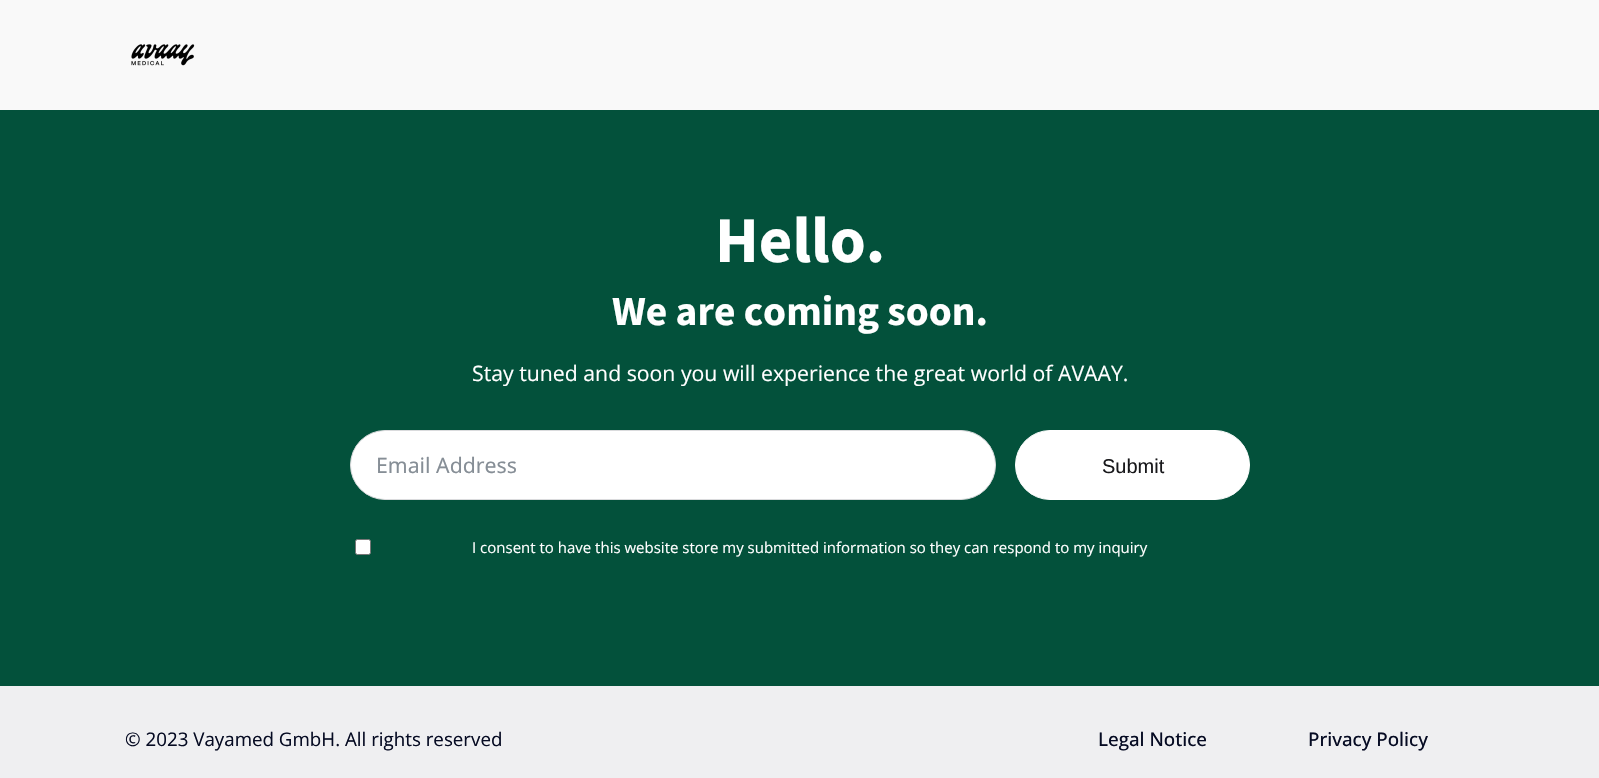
#include "include/core/SkBlurTypes.h"
#include "include/core/SkCanvas.h"
#include "include/core/SkData.h"
#include "include/core/SkFont.h"
#include "include/core/SkFontMgr.h"
#include "include/core/SkImage.h"
#include "include/core/SkMaskFilter.h"
#include "include/core/SkPaint.h"
#include "include/core/SkPathBuilder.h"
#include "include/core/SkTextBlob.h"
#include "include/effects/SkDashPathEffect.h"
#include "include/effects/SkGradientShader.h"
#include "include/utils/SkParsePath.h"

extern sk_sp<SkFontMgr> fontMgr;

static SkFont font(const char* family, int weight, float size, bool italic = false) {
    SkFontStyle style(weight, SkFontStyle::kNormal_Width,
        italic ? SkFontStyle::kItalic_Slant : SkFontStyle::kUpright_Slant);
    SkFont result(fontMgr->matchFamilyStyle(family, style), size);
    result.setSubpixel(true);
    return result;
}

static void drawLabel(SkCanvas* canvas, const char* s, float x, float y, const SkFont& font, SkColor color) {
    SkPaint ink(SkColor4f::FromColor(color));
    ink.setAntiAlias(true);
    canvas->drawString(s, x, y, font, ink);
}

static void fillRect(SkCanvas* canvas, float x, float y, float w, float h, SkColor color) {
    SkPaint ink(SkColor4f::FromColor(color));
    ink.setAntiAlias(true);
    canvas->drawRect(SkRect::MakeXYWH(x, y, w, h), ink);
}

static void drawPhoto(SkCanvas* canvas, const char* path, float x, float y, float w, float h) {
    auto image = SkImages::DeferredFromEncodedData(SkData::MakeFromFileName(path));
    canvas->drawImageRect(image, SkRect::MakeXYWH(x, y, w, h), SkSamplingOptions());
}

void draw(SkCanvas* canvas) {
    SkPaint paint;
    paint.setAntiAlias(true);
    canvas->clear(0xFF03513B);
    fillRect(canvas, 0, 0, 1599, 110, 0xFFF9F9F9);
    drawPhoto(canvas, "assets/img1.png", 131, 44, 64, 22);
    SkFont font1 = font("Source Sans Pro", 700, 65);
    drawLabel(canvas, "Hello.", 715, 262, font1, 0xFFFFFFFF);
    SkFont font2 = font("Source Sans Pro", 700, 41.5f);
    drawLabel(canvas, "We are coming soon.", 612, 325, font2, 0xFFFFFFFF);
    SkFont font3 = font("Open Sans", 400, 21.25f);
    drawLabel(canvas, "Stay tuned and soon you will experience the great world of AVAAY.", 472, 381, font3, 0xFFFFFFFF);
    paint.setColor(0xFFFFFFFF);
    canvas->drawRoundRect(SkRect::MakeXYWH(350.5f, 430.5f, 645, 69), 34.5f, 34.5f, paint);
    paint.setStroke(true);
    paint.setStrokeWidth(1);
    paint.setColor(0xFFDADBDD);
    canvas->drawRoundRect(SkRect::MakeXYWH(350.5f, 430.5f, 645, 69), 34.5f, 34.5f, paint);
    SkFont font4 = font("Noto Sans", 400, 21.25f);
    drawLabel(canvas, "Email Address", 376, 473, font4, 0xFF868E96);
    paint.setStroke(false);
    paint.setColor(0xFFFFFFFF);
    canvas->drawRoundRect(SkRect::MakeXYWH(1015.5f, 430.5f, 234, 69), 34.5f, 34.5f, paint);
    paint.setStroke(true);
    canvas->drawRoundRect(SkRect::MakeXYWH(1015.5f, 430.5f, 234, 69), 34.5f, 34.5f, paint);
    SkFont font5 = font("Liberation Sans", 400, 20);
    drawLabel(canvas, "Submit", 1102, 473, font5, 0xFF18181B);
    paint.setStroke(false);
    canvas->drawRoundRect(SkRect::MakeXYWH(355.5f, 539.5f, 15, 15), 2, 2, paint);
    paint.setStroke(true);
    paint.setColor(0xFF767676);
    canvas->drawRoundRect(SkRect::MakeXYWH(355.5f, 539.5f, 15, 15), 2, 2, paint);
    SkFont font6 = font("Open Sans", 400, 15);
    drawLabel(canvas, "I consent to have this website store my submitted information so they can respond to my inquiry", 472, 553, font6, 0xFFFFFFFF);
    fillRect(canvas, 0, 686, 1599, 92, 0xFFEFEFF1);
    SkFont font7 = font("Open Sans", 400, 18.75f);
    drawLabel(canvas, "© 2023 Vayamed GmbH. All rights reserved", 125, 746, font7, 0xFF060B23);
    SkFont font8 = font("Open Sans", 500, 18.75f);
    drawLabel(canvas, "Legal Notice", 1098, 746, font8, 0xFF060B23);
    drawLabel(canvas, "Privacy Policy", 1308, 746, font8, 0xFF060B23);
}
